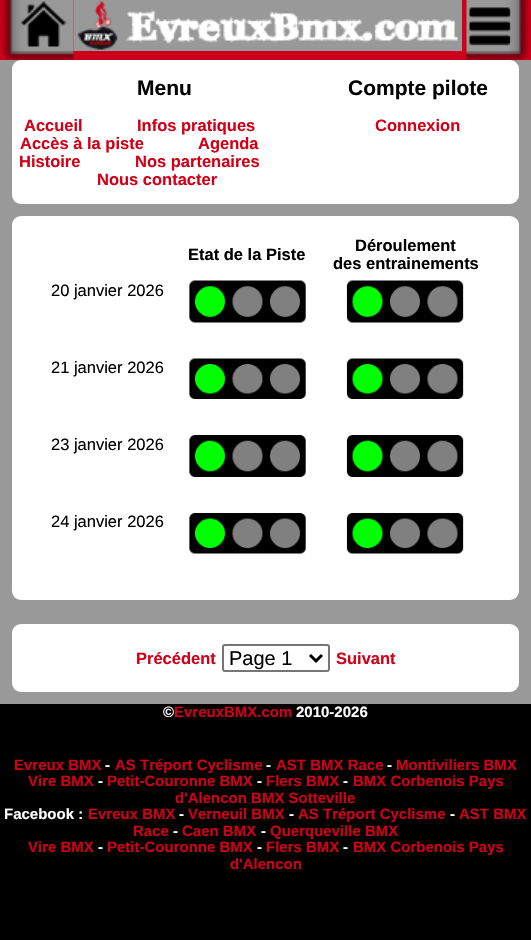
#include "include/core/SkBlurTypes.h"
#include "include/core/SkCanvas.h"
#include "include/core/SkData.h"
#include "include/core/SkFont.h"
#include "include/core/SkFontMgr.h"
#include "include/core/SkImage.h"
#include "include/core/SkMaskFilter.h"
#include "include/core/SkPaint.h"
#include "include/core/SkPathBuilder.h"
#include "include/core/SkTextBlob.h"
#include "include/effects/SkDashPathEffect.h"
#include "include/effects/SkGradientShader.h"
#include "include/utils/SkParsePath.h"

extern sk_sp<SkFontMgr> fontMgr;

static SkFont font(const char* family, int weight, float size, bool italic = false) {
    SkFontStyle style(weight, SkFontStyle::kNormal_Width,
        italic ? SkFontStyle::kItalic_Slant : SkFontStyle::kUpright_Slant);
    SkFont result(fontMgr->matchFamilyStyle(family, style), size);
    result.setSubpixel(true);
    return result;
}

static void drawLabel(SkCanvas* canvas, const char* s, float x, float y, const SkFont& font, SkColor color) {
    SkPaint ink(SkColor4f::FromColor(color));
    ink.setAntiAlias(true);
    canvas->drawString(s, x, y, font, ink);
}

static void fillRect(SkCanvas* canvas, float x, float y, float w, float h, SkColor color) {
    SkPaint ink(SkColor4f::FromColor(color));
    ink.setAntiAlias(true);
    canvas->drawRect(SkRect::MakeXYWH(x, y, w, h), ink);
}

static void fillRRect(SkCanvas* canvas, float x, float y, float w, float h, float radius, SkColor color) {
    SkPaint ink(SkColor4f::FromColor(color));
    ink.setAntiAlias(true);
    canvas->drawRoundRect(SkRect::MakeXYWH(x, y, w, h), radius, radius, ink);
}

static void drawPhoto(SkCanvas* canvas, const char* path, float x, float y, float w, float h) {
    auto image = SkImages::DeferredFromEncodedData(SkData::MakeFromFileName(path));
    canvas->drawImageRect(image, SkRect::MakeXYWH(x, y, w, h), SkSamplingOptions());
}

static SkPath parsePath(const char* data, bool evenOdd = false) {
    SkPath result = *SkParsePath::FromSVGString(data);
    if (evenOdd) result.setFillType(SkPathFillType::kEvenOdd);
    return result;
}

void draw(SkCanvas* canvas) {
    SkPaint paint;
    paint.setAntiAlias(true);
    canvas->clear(0xFF000000);
    drawPhoto(canvas, "assets/img1.png", 0, 0, 531, 60);
    drawPhoto(canvas, "assets/img2.png", 1, 0, 73, 60);
    drawPhoto(canvas, "assets/img3.png", 73, 0, 389, 51);
    drawPhoto(canvas, "assets/img4.png", 466, 0, 64, 60);
    fillRect(canvas, 0, 60, 531, 644, 0xFF999999);
    fillRRect(canvas, 12, 60, 507, 144, 9, 0xFFFFFFFF);
    SkFont font1 = font("Liberation Sans", 700, 21);
    drawLabel(canvas, "Menu", 137, 95, font1, 0xFF000000);
    SkFont font2 = font("Liberation Sans", 700, 16.5f);
    drawLabel(canvas, "Accueil", 24, 131, font2, 0xFFD10018);
    drawLabel(canvas, "Infos pratiques", 137, 131, font2, 0xFFD10018);
    drawLabel(canvas, "Accès à la piste", 20, 149, font2, 0xFFD10018);
    drawLabel(canvas, "Agenda", 198, 149, font2, 0xFFD10018);
    drawLabel(canvas, "Histoire", 19, 167, font2, 0xFFD10018);
    drawLabel(canvas, "Nos partenaires", 135, 167, font2, 0xFFD10018);
    drawLabel(canvas, "Nous contacter", 97, 185, font2, 0xFFD10018);
    drawLabel(canvas, "Compte pilote", 348, 95, font1, 0xFF000000);
    drawLabel(canvas, "Connexion", 375, 131, font2, 0xFFD10018);
    fillRRect(canvas, 12, 216, 507, 384, 9, 0xFFFFFFFF);
    drawLabel(canvas, "Etat de la Piste", 188, 260, font2, 0xFF000000);
    drawLabel(canvas, "Déroulement", 355, 251, font2, 0xFF000000);
    drawLabel(canvas, "des entrainements", 333, 269, font2, 0xFF000000);
    SkFont font3 = font("Liberation Sans", 400, 16.5f);
    drawLabel(canvas, "20 janvier 2026", 51, 296, font3, 0xFF000000);
    drawPhoto(canvas, "assets/img5.png", 189, 280, 117, 43);
    drawPhoto(canvas, "assets/img6.png", 346, 280, 118, 43);
    drawLabel(canvas, "21 janvier 2026", 51, 373, font3, 0xFF000000);
    drawPhoto(canvas, "assets/img7.png", 189, 358, 117, 41);
    drawPhoto(canvas, "assets/img8.png", 346, 358, 118, 41);
    drawLabel(canvas, "23 janvier 2026", 51, 450, font3, 0xFF000000);
    drawPhoto(canvas, "assets/img9.png", 189, 435, 117, 42);
    drawPhoto(canvas, "assets/img10.png", 346, 435, 118, 42);
    drawLabel(canvas, "24 janvier 2026", 51, 527, font3, 0xFF000000);
    drawPhoto(canvas, "assets/img11.png", 189, 513, 117, 41);
    drawPhoto(canvas, "assets/img12.png", 346, 513, 118, 41);
    fillRRect(canvas, 12, 624, 507, 68, 9, 0xFFFFFFFF);
    drawLabel(canvas, "Précédent", 136, 664, font2, 0xFFD10018);
    paint.setStroke(true);
    paint.setStrokeWidth(2);
    paint.setColor(0xFF767676);
    canvas->drawRoundRect(SkRect::MakeXYWH(223, 645, 106, 26), 2, 2, paint);
    paint.setStrokeWidth(3);
    paint.setColor(0xFF000000);
    canvas->drawPath(parsePath("M310 655L316 661L322 655"), paint);
    SkFont font4 = font("Liberation Sans", 400, 20);
    drawLabel(canvas, "Page 1", 229, 665, font4, 0xFF000000);
    drawLabel(canvas, "Suivant", 336, 664, font2, 0xFFD10018);
    SkFont font5 = font("Liberation Sans", 700, 15);
    drawLabel(canvas, "©", 163, 717, font5, 0xFFFFFFFF);
    drawLabel(canvas, "EvreuxBMX.com", 174, 717, font5, 0xFFD10018);
    drawLabel(canvas, "2010-2026", 296, 717, font5, 0xFFFFFFFF);
    drawLabel(canvas, "Evreux BMX", 14, 770, font5, 0xFFD10018);
    drawLabel(canvas, "-", 105, 770, font5, 0xFFFFFFFF);
    drawLabel(canvas, "AS Tréport Cyclisme", 115, 770, font5, 0xFFD10018);
    drawLabel(canvas, "-", 266, 770, font5, 0xFFFFFFFF);
    drawLabel(canvas, "AST BMX Race", 276, 770, font5, 0xFFD10018);
    drawLabel(canvas, "-", 387, 770, font5, 0xFFFFFFFF);
    drawLabel(canvas, "Montiviliers BMX", 396, 770, font5, 0xFFD10018);
    drawLabel(canvas, "Vire BMX", 28, 786, font5, 0xFFD10018);
    drawLabel(canvas, "-", 98, 786, font5, 0xFFFFFFFF);
    drawLabel(canvas, "Petit-Couronne BMX", 107, 786, font5, 0xFFD10018);
    drawLabel(canvas, "-", 257, 786, font5, 0xFFFFFFFF);
    drawLabel(canvas, "Flers BMX", 266, 786, font5, 0xFFD10018);
    drawLabel(canvas, "-", 343, 786, font5, 0xFFFFFFFF);
    drawLabel(canvas, "BMX Corbenois Pays", 353, 786, font5, 0xFFD10018);
    drawLabel(canvas, "d'Alencon BMX Sotteville", 175, 803, font5, 0xFFD10018);
    drawLabel(canvas, "Facebook :", 4, 819, font5, 0xFFFFFFFF);
    drawLabel(canvas, "Evreux BMX", 88, 819, font5, 0xFFD10018);
    drawLabel(canvas, "-", 179, 819, font5, 0xFFFFFFFF);
    drawLabel(canvas, "Verneuil BMX", 188, 819, font5, 0xFFD10018);
    drawLabel(canvas, "-", 289, 819, font5, 0xFFFFFFFF);
    drawLabel(canvas, "AS Tréport Cyclisme", 298, 819, font5, 0xFFD10018);
    drawLabel(canvas, "-", 450, 819, font5, 0xFFFFFFFF);
    drawLabel(canvas, "AST BMX", 459, 819, font5, 0xFFD10018);
    drawLabel(canvas, "Race", 133, 836, font5, 0xFFD10018);
    drawLabel(canvas, "-", 173, 836, font5, 0xFFFFFFFF);
    drawLabel(canvas, "Caen BMX", 182, 836, font5, 0xFFD10018);
    drawLabel(canvas, "-", 261, 836, font5, 0xFFFFFFFF);
    drawLabel(canvas, "Querqueville BMX", 270, 836, font5, 0xFFD10018);
    drawLabel(canvas, "Vire BMX", 28, 852, font5, 0xFFD10018);
    drawLabel(canvas, "-", 98, 852, font5, 0xFFFFFFFF);
    drawLabel(canvas, "Petit-Couronne BMX", 107, 852, font5, 0xFFD10018);
    drawLabel(canvas, "-", 257, 852, font5, 0xFFFFFFFF);
    drawLabel(canvas, "Flers BMX", 266, 852, font5, 0xFFD10018);
    drawLabel(canvas, "-", 343, 852, font5, 0xFFFFFFFF);
    drawLabel(canvas, "BMX Corbenois Pays", 353, 852, font5, 0xFFD10018);
    drawLabel(canvas, "d'Alencon", 230, 869, font5, 0xFFD10018);
}
